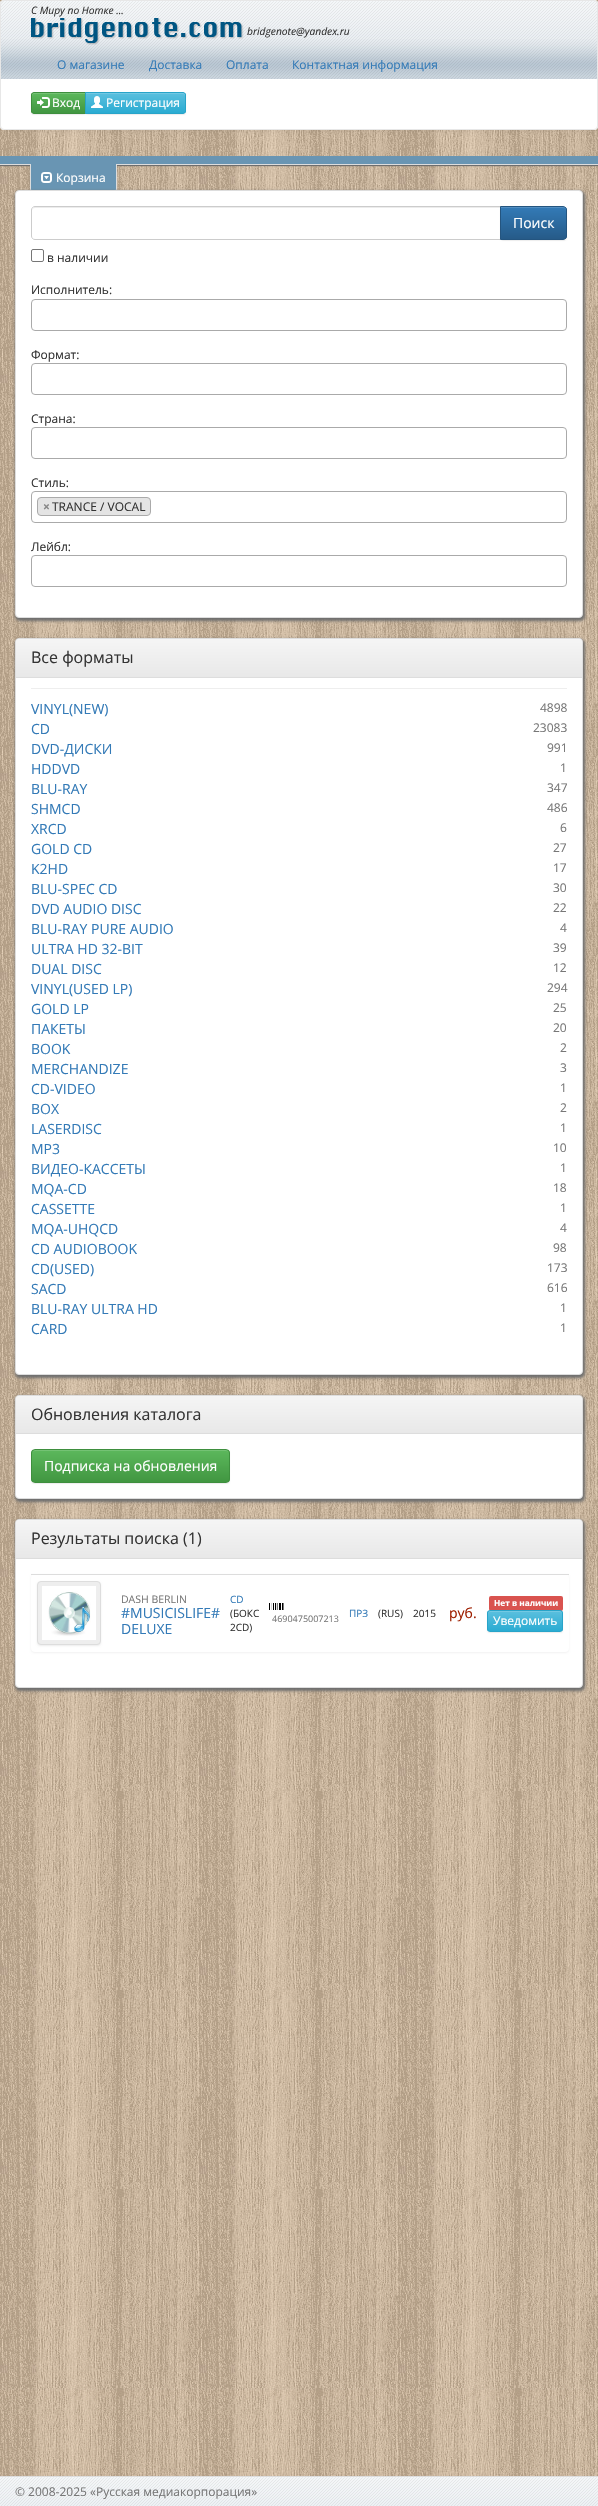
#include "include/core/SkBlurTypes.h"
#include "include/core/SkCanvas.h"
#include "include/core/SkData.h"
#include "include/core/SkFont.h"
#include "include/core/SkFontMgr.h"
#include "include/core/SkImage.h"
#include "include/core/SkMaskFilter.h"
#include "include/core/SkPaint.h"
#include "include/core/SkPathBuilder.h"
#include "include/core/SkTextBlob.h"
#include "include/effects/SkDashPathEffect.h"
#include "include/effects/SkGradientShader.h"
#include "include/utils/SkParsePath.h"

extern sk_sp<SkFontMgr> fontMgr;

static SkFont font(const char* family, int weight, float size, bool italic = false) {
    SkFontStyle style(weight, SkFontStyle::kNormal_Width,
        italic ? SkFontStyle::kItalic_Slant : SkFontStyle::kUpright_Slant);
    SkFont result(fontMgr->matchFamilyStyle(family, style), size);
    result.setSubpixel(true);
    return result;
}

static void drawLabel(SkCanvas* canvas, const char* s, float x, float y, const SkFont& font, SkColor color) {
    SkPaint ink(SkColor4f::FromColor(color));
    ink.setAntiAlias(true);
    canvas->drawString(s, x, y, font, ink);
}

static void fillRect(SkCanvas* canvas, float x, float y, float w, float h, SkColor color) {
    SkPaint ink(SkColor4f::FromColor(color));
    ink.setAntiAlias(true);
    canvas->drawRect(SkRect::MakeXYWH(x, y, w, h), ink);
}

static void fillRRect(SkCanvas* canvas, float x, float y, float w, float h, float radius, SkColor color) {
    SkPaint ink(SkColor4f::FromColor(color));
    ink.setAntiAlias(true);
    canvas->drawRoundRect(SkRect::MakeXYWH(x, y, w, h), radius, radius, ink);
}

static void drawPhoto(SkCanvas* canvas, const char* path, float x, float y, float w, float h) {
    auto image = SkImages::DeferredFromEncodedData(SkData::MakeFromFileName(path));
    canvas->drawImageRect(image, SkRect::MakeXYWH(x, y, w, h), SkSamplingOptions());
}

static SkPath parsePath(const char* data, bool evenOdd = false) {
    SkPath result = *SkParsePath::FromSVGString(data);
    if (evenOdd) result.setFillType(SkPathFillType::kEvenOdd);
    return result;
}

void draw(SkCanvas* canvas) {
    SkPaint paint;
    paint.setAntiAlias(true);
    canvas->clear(0xFFFFFFFF);
    drawPhoto(canvas, "assets/img1.png", 0, 0, 598, 2476);
    paint.setColor(0x12000000);
    paint.setMaskFilter(SkMaskFilter::MakeBlur(kNormal_SkBlurStyle, 2.5f));
    canvas->drawRoundRect(SkRect::MakeXYWH(0, 1, 598, 130), 4, 4, paint);
    paint.setMaskFilter(nullptr);
    fillRRect(canvas, 0, 0, 598, 130, 4, 0xFFFFFFFF);
    drawPhoto(canvas, "assets/img2.png", 0, 1, 598, 78);
    paint.setColor(0x26FFFFFF);
    canvas->drawPath(parsePath("M4 2H594C596 2 597 3 597 5V4C597 2 596 1 594 1H4C2 1 1 2 1 4V5C1 3 2 2 4 2Z"), paint);
    paint.setStroke(true);
    paint.setStrokeWidth(1);
    paint.setColor(0xFFE7E7E7);
    canvas->drawRoundRect(SkRect::MakeXYWH(0.5f, 0.5f, 597, 129), 3.5f, 3.5f, paint);
    SkFont font1 = font("Open Sans", 400, 10.25f, true);
    drawLabel(canvas, "С Миру по Нотке ...", 31, 14, font1, 0xFF333333);
    drawPhoto(canvas, "assets/img3.png", 31, 18, 213, 27);
    drawLabel(canvas, "bridgenote@yandex.ru", 247, 35, font1, 0xFF333333);
    SkFont font2 = font("Open Sans", 400, 12);
    drawLabel(canvas, "О магазине", 57, 69, font2, 0xFF337AB7);
    drawLabel(canvas, "Доставка", 149, 69, font2, 0xFF337AB7);
    drawLabel(canvas, "Оплата", 226, 69, font2, 0xFF337AB7);
    drawLabel(canvas, "Контактная информация", 292, 69, font2, 0xFF337AB7);
    paint.setStroke(false);
    paint.setColor(0x12000000);
    paint.setMaskFilter(SkMaskFilter::MakeBlur(kNormal_SkBlurStyle, 0.5f));
    canvas->drawRoundRect(SkRect::MakeXYWH(31, 93, 55, 22), 3, 3, paint);
    paint.setMaskFilter(nullptr);
    canvas->save();
    canvas->clipPath(parsePath("M34 92H86V114H34C32.5 114 31 112.5 31 111V95C31 93.5 32.5 92 34 92Z"), true);
    {
        const SkColor colors[] = {0xFF5CB85C, 0xFF419641};
        const float stops[] = {0, 1};
        const SkPoint ends[] = {{59, 93}, {59, 113}};
        paint.setShader(SkGradientShader::MakeLinear(ends, colors, stops, 2, SkTileMode::kClamp));
        paint.setAlpha(255);
    }
    canvas->drawRect(SkRect::MakeXYWH(31, 93, 54, 20), paint);
    canvas->restore();
    paint.setShader(nullptr);
    paint.setColor(0xFF74C274);
    canvas->drawPath(parsePath("M34 94H85V93H34C33 93 32 94 32 95V96C32 95 33 94 34 94Z"), paint);
    paint.setStroke(true);
    paint.setColor(0xFF3E8F3E);
    canvas->drawPath(parsePath("M34 92.5H85.5V113.5H34C32.5 113.5 31.5 112.5 31.5 111V95C31.5 93.5 32.5 92.5 34 92.5Z"), paint);
    drawPhoto(canvas, "assets/img4.png", 37, 97, 13, 11);
    drawLabel(canvas, "Вход", 52, 107, font2, 0xFFFFFFFF);
    paint.setStroke(false);
    paint.setColor(0x12000000);
    paint.setMaskFilter(SkMaskFilter::MakeBlur(kNormal_SkBlurStyle, 0.5f));
    canvas->drawRoundRect(SkRect::MakeXYWH(85, 93, 101, 22), 3, 3, paint);
    paint.setMaskFilter(nullptr);
    canvas->save();
    canvas->clipPath(parsePath("M85 92H183C184.5 92 186 93.5 186 95V111C186 112.5 184.5 114 183 114H85Z"), true);
    {
        const SkColor colors[] = {0xFF5BC0DE, 0xFF2AABD2};
        const float stops[] = {0, 1};
        const SkPoint ends[] = {{136, 93}, {136, 113}};
        paint.setShader(SkGradientShader::MakeLinear(ends, colors, stops, 2, SkTileMode::kClamp));
        paint.setAlpha(255);
    }
    canvas->drawRect(SkRect::MakeXYWH(86, 93, 100, 20), paint);
    canvas->restore();
    paint.setShader(nullptr);
    paint.setColor(0x26FFFFFF);
    canvas->drawPath(parsePath("M86 94H183C184 94 185 95 185 96V95C185 94 184 93 183 93H86Z"), paint);
    paint.setStroke(true);
    paint.setColor(0xFF28A4C9);
    canvas->drawPath(parsePath("M85.5 92.5H183C184.5 92.5 185.5 93.5 185.5 95V111C185.5 112.5 184.5 113.5 183 113.5H85.5Z"), paint);
    drawPhoto(canvas, "assets/img5.png", 91, 96, 12, 12);
    drawLabel(canvas, "Регистрация", 106, 107, font2, 0xFFFFFFFF);
    paint.setStroke(false);
    paint.setColor(0xFF6E6E6E);
    paint.setMaskFilter(SkMaskFilter::MakeBlur(kNormal_SkBlurStyle, 0.5f));
    canvas->drawRect(SkRect::MakeXYWH(0, 157, 598, 9), paint);
    paint.setMaskFilter(nullptr);
    fillRect(canvas, 0, 156, 598, 8, 0xFF6995B3);
    fillRect(canvas, 0, 164, 598, 1, 0xFFDDDDDD);
    paint.setMaskFilter(SkMaskFilter::MakeBlur(kNormal_SkBlurStyle, 0.5f));
    canvas->drawRoundRect(SkRect::MakeXYWH(30, 165, 87, 29), 4, 4, paint);
    paint.setMaskFilter(nullptr);
    fillRect(canvas, 30, 164, 87, 26, 0xFF6995B3);
    paint.setColor(0xFFDDDDDD);
    canvas->drawPath(parsePath("M30 164H117V189C117 191 115 193 113 193H34C32 193 30 191 30 189ZM31 164H116V189C116 191 115 192 113 192H34C32 192 31 191 31 189Z", true), paint);
    drawPhoto(canvas, "assets/img6.png", 41, 172, 11, 11);
    drawLabel(canvas, "Корзина", 56, 182, font2, 0xFFFFFFFF);
    paint.setColor(0xFF6E6E6E);
    paint.setMaskFilter(SkMaskFilter::MakeBlur(kNormal_SkBlurStyle, 1.5f));
    canvas->drawRoundRect(SkRect::MakeXYWH(15, 191, 570, 430), 5, 5, paint);
    paint.setMaskFilter(nullptr);
    paint.setColor(0xFFFFFFFF);
    canvas->drawRoundRect(SkRect::MakeXYWH(15.5f, 190.5f, 567, 427), 3.5f, 3.5f, paint);
    paint.setStroke(true);
    paint.setColor(0xFFDDDDDD);
    canvas->drawRoundRect(SkRect::MakeXYWH(15.5f, 190.5f, 567, 427), 3.5f, 3.5f, paint);
    paint.setStroke(false);
    paint.setColor(0xFFECECEC);
    canvas->drawPath(parsePath("M35 208H500V207H35C33 207 32 209 32 211C32 209 33 208 35 208Z"), paint);
    paint.setStroke(true);
    paint.setColor(0xFFCCCCCC);
    canvas->drawPath(parsePath("M35 206.5H500.5V239.5H35C33 239.5 31.5 238 31.5 236V210C31.5 208 33 206.5 35 206.5Z"), paint);
    paint.setStroke(false);
    paint.setColor(0x12000000);
    paint.setMaskFilter(SkMaskFilter::MakeBlur(kNormal_SkBlurStyle, 0.5f));
    canvas->drawRoundRect(SkRect::MakeXYWH(500, 207, 67, 34), 4, 4, paint);
    paint.setMaskFilter(nullptr);
    canvas->save();
    canvas->clipPath(parsePath("M500 206H563C565 206 567 208 567 210V236C567 238 565 240 563 240H500Z"), true);
    {
        const SkColor colors[] = {0xFF337AB7, 0xFF265A88};
        const float stops[] = {0, 1};
        const SkPoint ends[] = {{534, 207}, {534, 239}};
        paint.setShader(SkGradientShader::MakeLinear(ends, colors, stops, 2, SkTileMode::kClamp));
        paint.setAlpha(255);
    }
    canvas->drawRect(SkRect::MakeXYWH(501, 207, 66, 32), paint);
    canvas->restore();
    paint.setShader(nullptr);
    paint.setColor(0xFF528EC1);
    canvas->drawPath(parsePath("M501 208H563C565 208 566 209 566 211V210C566 208 565 207 563 207H501Z"), paint);
    paint.setStroke(true);
    paint.setColor(0xFF245580);
    canvas->drawPath(parsePath("M500.5 206.5H563C565 206.5 566.5 208 566.5 210V236C566.5 238 565 239.5 563 239.5H500.5Z"), paint);
    SkFont font3 = font("Open Sans", 400, 14);
    drawLabel(canvas, "Поиск", 513, 228, font3, 0xFFFFFFFF);
    paint.setColor(0xFF767676);
    canvas->drawRoundRect(SkRect::MakeXYWH(31.5f, 249.5f, 12, 12), 1.5f, 1.5f, paint);
    drawLabel(canvas, "в наличии", 47, 262, font2, 0xFF333333);
    drawLabel(canvas, "Исполнитель:", 31, 294, font2, 0xFF333333);
    paint.setColor(0xFFAAAAAA);
    canvas->drawRoundRect(SkRect::MakeXYWH(31.5f, 299.5f, 535, 31), 3.5f, 3.5f, paint);
    drawLabel(canvas, "Формат:", 31, 359, font2, 0xFF333333);
    canvas->drawRoundRect(SkRect::MakeXYWH(31.5f, 363.5f, 535, 31), 3.5f, 3.5f, paint);
    drawLabel(canvas, "Страна:", 31, 423, font2, 0xFF333333);
    canvas->drawRoundRect(SkRect::MakeXYWH(31.5f, 427.5f, 535, 31), 3.5f, 3.5f, paint);
    drawLabel(canvas, "Стиль:", 31, 487, font2, 0xFF333333);
    canvas->drawRoundRect(SkRect::MakeXYWH(31.5f, 491.5f, 535, 31), 3.5f, 3.5f, paint);
    paint.setStroke(false);
    paint.setColor(0xFFE4E4E4);
    canvas->drawRoundRect(SkRect::MakeXYWH(37.5f, 497.5f, 113, 18), 3.5f, 3.5f, paint);
    paint.setStroke(true);
    paint.setColor(0xFFAAAAAA);
    canvas->drawRoundRect(SkRect::MakeXYWH(37.5f, 497.5f, 113, 18), 3.5f, 3.5f, paint);
    SkFont font4 = font("Open Sans", 700, 12);
    drawLabel(canvas, "×", 43, 511, font4, 0xFF888888);
    drawLabel(canvas, "TRANCE / VOCAL", 52, 511, font2, 0xFF333333);
    drawLabel(canvas, "Лейбл:", 31, 551, font2, 0xFF333333);
    canvas->drawRoundRect(SkRect::MakeXYWH(31.5f, 555.5f, 535, 31), 3.5f, 3.5f, paint);
    paint.setStroke(false);
    paint.setColor(0xFF6E6E6E);
    paint.setMaskFilter(SkMaskFilter::MakeBlur(kNormal_SkBlurStyle, 1.5f));
    canvas->drawRoundRect(SkRect::MakeXYWH(15, 639, 570, 739), 5, 5, paint);
    paint.setMaskFilter(nullptr);
    paint.setColor(0xFFFFFFFF);
    canvas->drawRoundRect(SkRect::MakeXYWH(15.5f, 638.5f, 567, 736), 3.5f, 3.5f, paint);
    paint.setStroke(true);
    paint.setColor(0xFFDDDDDD);
    canvas->drawRoundRect(SkRect::MakeXYWH(15.5f, 638.5f, 567, 736), 3.5f, 3.5f, paint);
    paint.setStroke(false);
    {
        const SkColor colors[] = {0xFFF5F5F5, 0xFFE8E8E8};
        const float stops[] = {0, 1};
        const SkPoint ends[] = {{299, 639}, {299, 677}};
        paint.setShader(SkGradientShader::MakeLinear(ends, colors, stops, 2, SkTileMode::kClamp));
        paint.setAlpha(255);
    }
    canvas->drawPath(parsePath("M19 639H579C580.5 639 582 640.5 582 642V677H16V642C16 640.5 17.5 639 19 639Z"), paint);
    fillRect(canvas, 16, 677, 566, 1, 0xFFDDDDDD);
    SkFont font5 = font("Open Sans", 400, 16);
    drawLabel(canvas, "Все форматы", 31, 663, font5, 0xFF333333);
    fillRect(canvas, 31, 688, 536, 1, 0xFFEEEEEE);
    drawLabel(canvas, "VINYL(NEW)", 31, 714, font3, 0xFF337AB7);
    drawLabel(canvas, "4898", 540, 712, font2, 0xFF777777);
    drawLabel(canvas, "CD", 31, 734, font3, 0xFF337AB7);
    drawLabel(canvas, "23083", 533, 732, font2, 0xFF777777);
    drawLabel(canvas, "DVD-ДИСКИ", 31, 754, font3, 0xFF337AB7);
    drawLabel(canvas, "991", 547, 752, font2, 0xFF777777);
    drawLabel(canvas, "HDDVD", 31, 774, font3, 0xFF337AB7);
    drawLabel(canvas, "1", 560, 772, font2, 0xFF777777);
    drawLabel(canvas, "BLU-RAY", 31, 794, font3, 0xFF337AB7);
    drawLabel(canvas, "347", 547, 792, font2, 0xFF777777);
    drawLabel(canvas, "SHMCD", 31, 814, font3, 0xFF337AB7);
    drawLabel(canvas, "486", 547, 812, font2, 0xFF777777);
    drawLabel(canvas, "XRCD", 31, 834, font3, 0xFF337AB7);
    drawLabel(canvas, "6", 560, 832, font2, 0xFF777777);
    drawLabel(canvas, "GOLD CD", 31, 854, font3, 0xFF337AB7);
    drawLabel(canvas, "27", 553, 852, font2, 0xFF777777);
    drawLabel(canvas, "K2HD", 31, 874, font3, 0xFF337AB7);
    drawLabel(canvas, "17", 553, 872, font2, 0xFF777777);
    drawLabel(canvas, "BLU-SPEC CD", 31, 894, font3, 0xFF337AB7);
    drawLabel(canvas, "30", 553, 892, font2, 0xFF777777);
    drawLabel(canvas, "DVD AUDIO DISC", 31, 914, font3, 0xFF337AB7);
    drawLabel(canvas, "22", 553, 912, font2, 0xFF777777);
    drawLabel(canvas, "BLU-RAY PURE AUDIO", 31, 934, font3, 0xFF337AB7);
    drawLabel(canvas, "4", 560, 932, font2, 0xFF777777);
    drawLabel(canvas, "ULTRA HD 32-BIT", 31, 954, font3, 0xFF337AB7);
    drawLabel(canvas, "39", 553, 952, font2, 0xFF777777);
    drawLabel(canvas, "DUAL DISC", 31, 974, font3, 0xFF337AB7);
    drawLabel(canvas, "12", 553, 972, font2, 0xFF777777);
    drawLabel(canvas, "VINYL(USED LP)", 31, 994, font3, 0xFF337AB7);
    drawLabel(canvas, "294", 547, 992, font2, 0xFF777777);
    drawLabel(canvas, "GOLD LP", 31, 1014, font3, 0xFF337AB7);
    drawLabel(canvas, "25", 553, 1012, font2, 0xFF777777);
    drawLabel(canvas, "ПАКЕТЫ", 31, 1034, font3, 0xFF337AB7);
    drawLabel(canvas, "20", 553, 1032, font2, 0xFF777777);
    drawLabel(canvas, "BOOK", 31, 1054, font3, 0xFF337AB7);
    drawLabel(canvas, "2", 560, 1052, font2, 0xFF777777);
    drawLabel(canvas, "MERCHANDIZE", 31, 1074, font3, 0xFF337AB7);
    drawLabel(canvas, "3", 560, 1072, font2, 0xFF777777);
    drawLabel(canvas, "CD-VIDEO", 31, 1094, font3, 0xFF337AB7);
    drawLabel(canvas, "1", 560, 1092, font2, 0xFF777777);
    drawLabel(canvas, "BOX", 31, 1114, font3, 0xFF337AB7);
    drawLabel(canvas, "2", 560, 1112, font2, 0xFF777777);
    drawLabel(canvas, "LASERDISC", 31, 1134, font3, 0xFF337AB7);
    drawLabel(canvas, "1", 560, 1132, font2, 0xFF777777);
    drawLabel(canvas, "MP3", 31, 1154, font3, 0xFF337AB7);
    drawLabel(canvas, "10", 553, 1152, font2, 0xFF777777);
    drawLabel(canvas, "ВИДЕО-КАССЕТЫ", 31, 1174, font3, 0xFF337AB7);
    drawLabel(canvas, "1", 560, 1172, font2, 0xFF777777);
    drawLabel(canvas, "MQA-CD", 31, 1194, font3, 0xFF337AB7);
    drawLabel(canvas, "18", 553, 1192, font2, 0xFF777777);
    drawLabel(canvas, "CASSETTE", 31, 1214, font3, 0xFF337AB7);
    drawLabel(canvas, "1", 560, 1212, font2, 0xFF777777);
    drawLabel(canvas, "MQA-UHQCD", 31, 1234, font3, 0xFF337AB7);
    drawLabel(canvas, "4", 560, 1232, font2, 0xFF777777);
    drawLabel(canvas, "CD AUDIOBOOK", 31, 1254, font3, 0xFF337AB7);
    drawLabel(canvas, "98", 553, 1252, font2, 0xFF777777);
    drawLabel(canvas, "CD(USED)", 31, 1274, font3, 0xFF337AB7);
    drawLabel(canvas, "173", 547, 1272, font2, 0xFF777777);
    drawLabel(canvas, "SACD", 31, 1294, font3, 0xFF337AB7);
    drawLabel(canvas, "616", 547, 1292, font2, 0xFF777777);
    drawLabel(canvas, "BLU-RAY ULTRA HD", 31, 1314, font3, 0xFF337AB7);
    drawLabel(canvas, "1", 560, 1312, font2, 0xFF777777);
    drawLabel(canvas, "CARD", 31, 1334, font3, 0xFF337AB7);
    drawLabel(canvas, "1", 560, 1332, font2, 0xFF777777);
    paint.setShader(nullptr);
    paint.setColor(0xFF6E6E6E);
    paint.setMaskFilter(SkMaskFilter::MakeBlur(kNormal_SkBlurStyle, 1.5f));
    canvas->drawRoundRect(SkRect::MakeXYWH(15, 1396, 570, 106), 5, 5, paint);
    paint.setMaskFilter(nullptr);
    paint.setColor(0xFFFFFFFF);
    canvas->drawRoundRect(SkRect::MakeXYWH(15.5f, 1395.5f, 567, 103), 3.5f, 3.5f, paint);
    paint.setStroke(true);
    paint.setColor(0xFFDDDDDD);
    canvas->drawRoundRect(SkRect::MakeXYWH(15.5f, 1395.5f, 567, 103), 3.5f, 3.5f, paint);
    paint.setStroke(false);
    {
        const SkColor colors[] = {0xFFF5F5F5, 0xFFE8E8E8};
        const float stops[] = {0, 1};
        const SkPoint ends[] = {{299, 1396}, {299, 1433}};
        paint.setShader(SkGradientShader::MakeLinear(ends, colors, stops, 2, SkTileMode::kClamp));
        paint.setAlpha(255);
    }
    canvas->drawPath(parsePath("M19 1396H579C580.5 1396 582 1397.5 582 1399V1433H16V1399C16 1397.5 17.5 1396 19 1396Z"), paint);
    fillRect(canvas, 16, 1433, 566, 1, 0xFFDDDDDD);
    drawLabel(canvas, "Обновления каталога", 31, 1420, font5, 0xFF333333);
    paint.setShader(nullptr);
    paint.setColor(0x12000000);
    paint.setMaskFilter(SkMaskFilter::MakeBlur(kNormal_SkBlurStyle, 0.5f));
    canvas->drawRoundRect(SkRect::MakeXYWH(31, 1450, 199, 34), 4, 4, paint);
    paint.setMaskFilter(nullptr);
    canvas->save();
    canvas->clipPath(parsePath("M35 1449H226C228 1449 230 1451 230 1453V1479C230 1481 228 1483 226 1483H35C33 1483 31 1481 31 1479V1453C31 1451 33 1449 35 1449Z"), true);
    {
        const SkColor colors[] = {0xFF5CB85C, 0xFF419641};
        const float stops[] = {0, 1};
        const SkPoint ends[] = {{131, 1450}, {131, 1482}};
        paint.setShader(SkGradientShader::MakeLinear(ends, colors, stops, 2, SkTileMode::kClamp));
        paint.setAlpha(255);
    }
    canvas->drawRect(SkRect::MakeXYWH(31, 1450, 199, 32), paint);
    canvas->restore();
    paint.setShader(nullptr);
    paint.setColor(0xFF74C274);
    canvas->drawPath(parsePath("M35 1451H226C228 1451 229 1452 229 1454C229 1452 228 1450 226 1450H35C33 1450 32 1452 32 1454C32 1452 33 1451 35 1451Z"), paint);
    paint.setStroke(true);
    paint.setColor(0xFF3E8F3E);
    canvas->drawRoundRect(SkRect::MakeXYWH(31.5f, 1449.5f, 198, 33), 3.5f, 3.5f, paint);
    drawLabel(canvas, "Подписка на обновления", 44, 1471, font3, 0xFFFFFFFF);
    paint.setStroke(false);
    paint.setColor(0xFF6E6E6E);
    paint.setMaskFilter(SkMaskFilter::MakeBlur(kNormal_SkBlurStyle, 1.5f));
    canvas->drawRoundRect(SkRect::MakeXYWH(15, 1520, 570, 171), 5, 5, paint);
    paint.setMaskFilter(nullptr);
    paint.setColor(0xFFFFFFFF);
    canvas->drawRoundRect(SkRect::MakeXYWH(15.5f, 1519.5f, 567, 168), 3.5f, 3.5f, paint);
    paint.setStroke(true);
    paint.setColor(0xFFDDDDDD);
    canvas->drawRoundRect(SkRect::MakeXYWH(15.5f, 1519.5f, 567, 168), 3.5f, 3.5f, paint);
    paint.setStroke(false);
    {
        const SkColor colors[] = {0xFFF5F5F5, 0xFFE8E8E8};
        const float stops[] = {0, 1};
        const SkPoint ends[] = {{299, 1520}, {299, 1558}};
        paint.setShader(SkGradientShader::MakeLinear(ends, colors, stops, 2, SkTileMode::kClamp));
        paint.setAlpha(255);
    }
    canvas->drawPath(parsePath("M19 1520H579C580.5 1520 582 1521.5 582 1523V1558H16V1523C16 1521.5 17.5 1520 19 1520Z"), paint);
    fillRect(canvas, 16, 1558, 566, 1, 0xFFDDDDDD);
    drawLabel(canvas, "Результаты поиска (1)", 31, 1544, font5, 0xFF333333);
    paint.setShader(nullptr);
    paint.setColor(0x0D000000);
    paint.setMaskFilter(SkMaskFilter::MakeBlur(kNormal_SkBlurStyle, 1));
    canvas->drawRoundRect(SkRect::MakeXYWH(31, 1575, 538, 78), 4, 4, paint);
    paint.setMaskFilter(nullptr);
    fillRRect(canvas, 31, 1574, 538, 78, 4, 0xFFFFFFFF);
    paint.setColor(0x12000000);
    paint.setMaskFilter(SkMaskFilter::MakeBlur(kNormal_SkBlurStyle, 1));
    canvas->drawRoundRect(SkRect::MakeXYWH(37, 1582, 64, 64), 4, 4, paint);
    paint.setMaskFilter(nullptr);
    paint.setColor(0xFFEEEEEE);
    canvas->drawRoundRect(SkRect::MakeXYWH(37.5f, 1581.5f, 63, 63), 3.5f, 3.5f, paint);
    paint.setStroke(true);
    paint.setColor(0xFFDDDDDD);
    canvas->drawRoundRect(SkRect::MakeXYWH(37.5f, 1581.5f, 63, 63), 3.5f, 3.5f, paint);
    drawPhoto(canvas, "assets/img7.png", 42, 1586, 54, 54);
    SkFont font6 = font("Open Sans", 400, 10.5f);
    drawLabel(canvas, "DASH BERLIN", 121, 1603, font6, 0xFF777777);
    drawLabel(canvas, "#MUSICISLIFE#", 121, 1618, font3, 0xFF337AB7);
    drawLabel(canvas, "DELUXE", 121, 1634, font3, 0xFF337AB7);
    SkFont font7 = font("Open Sans", 400, 10);
    drawLabel(canvas, "CD", 230, 1603, font7, 0xFF337AB7);
    drawLabel(canvas, "(БОКС", 230, 1617, font7, 0xFF333333);
    drawLabel(canvas, "2CD)", 230, 1631, font7, 0xFF333333);
    drawLabel(canvas, "ПРЗ", 349, 1617, font7, 0xFF337AB7);
    drawLabel(canvas, "(RUS)", 378, 1617, font7, 0xFF333333);
    drawLabel(canvas, "2015", 413, 1617, font7, 0xFF333333);
    drawLabel(canvas, "руб.", 449, 1618, font3, 0xFF9E1E00);
    fillRect(canvas, 31, 1574, 538, 1, 0xFFDDDDDD);
    fillRRect(canvas, 489, 1596, 74, 15, 2, 0xFFD9534F);
    SkFont font8 = font("Open Sans", 700, 8.25f);
    drawLabel(canvas, "Нет в наличии", 494, 1606, font8, 0xFFFFFFFF);
    paint.setStroke(false);
    paint.setColor(0x12000000);
    paint.setMaskFilter(SkMaskFilter::MakeBlur(kNormal_SkBlurStyle, 0.5f));
    canvas->drawRoundRect(SkRect::MakeXYWH(487, 1611, 76, 22), 3, 3, paint);
    paint.setMaskFilter(nullptr);
    canvas->save();
    canvas->clipPath(parsePath("M490 1610H560C561.5 1610 563 1611.5 563 1613V1629C563 1630.5 561.5 1632 560 1632H490C488.5 1632 487 1630.5 487 1629V1613C487 1611.5 488.5 1610 490 1610Z"), true);
    {
        const SkColor colors[] = {0xFF5BC0DE, 0xFF2AABD2};
        const float stops[] = {0, 1};
        const SkPoint ends[] = {{525, 1611}, {525, 1631}};
        paint.setShader(SkGradientShader::MakeLinear(ends, colors, stops, 2, SkTileMode::kClamp));
        paint.setAlpha(255);
    }
    canvas->drawRect(SkRect::MakeXYWH(487, 1611, 76, 20), paint);
    canvas->restore();
    paint.setShader(nullptr);
    paint.setColor(0xFF73C9E3);
    canvas->drawPath(parsePath("M490 1612H560C561 1612 562 1613 562 1614C562 1608 552 1611 548 1611H502C498 1611 488 1608 488 1614C488 1613 489 1612 490 1612Z"), paint);
    paint.setStroke(true);
    paint.setColor(0xFF28A4C9);
    canvas->drawRoundRect(SkRect::MakeXYWH(487.5f, 1610.5f, 75, 21), 2.5f, 2.5f, paint);
    drawLabel(canvas, "Уведомить", 493, 1625, font2, 0xFFFFFFFF);
    drawPhoto(canvas, "assets/img8.png", 269, 1603, 15, 7);
    SkFont font9 = font("Open Sans", 400, 9);
    drawLabel(canvas, "4690475007213", 272, 1622, font9, 0xFF777777);
    drawPhoto(canvas, "assets/img9.png", 0, 2477, 598, 29);
    fillRect(canvas, 0, 2477, 598, 1, 0x26FFFFFF);
    fillRect(canvas, 0, 2476, 598, 1, 0xFFDDDDDD);
    drawLabel(canvas, "© 2008-2025 «Русская медиакорпорация»", 15, 2496, font2, 0xFF777777);
}
